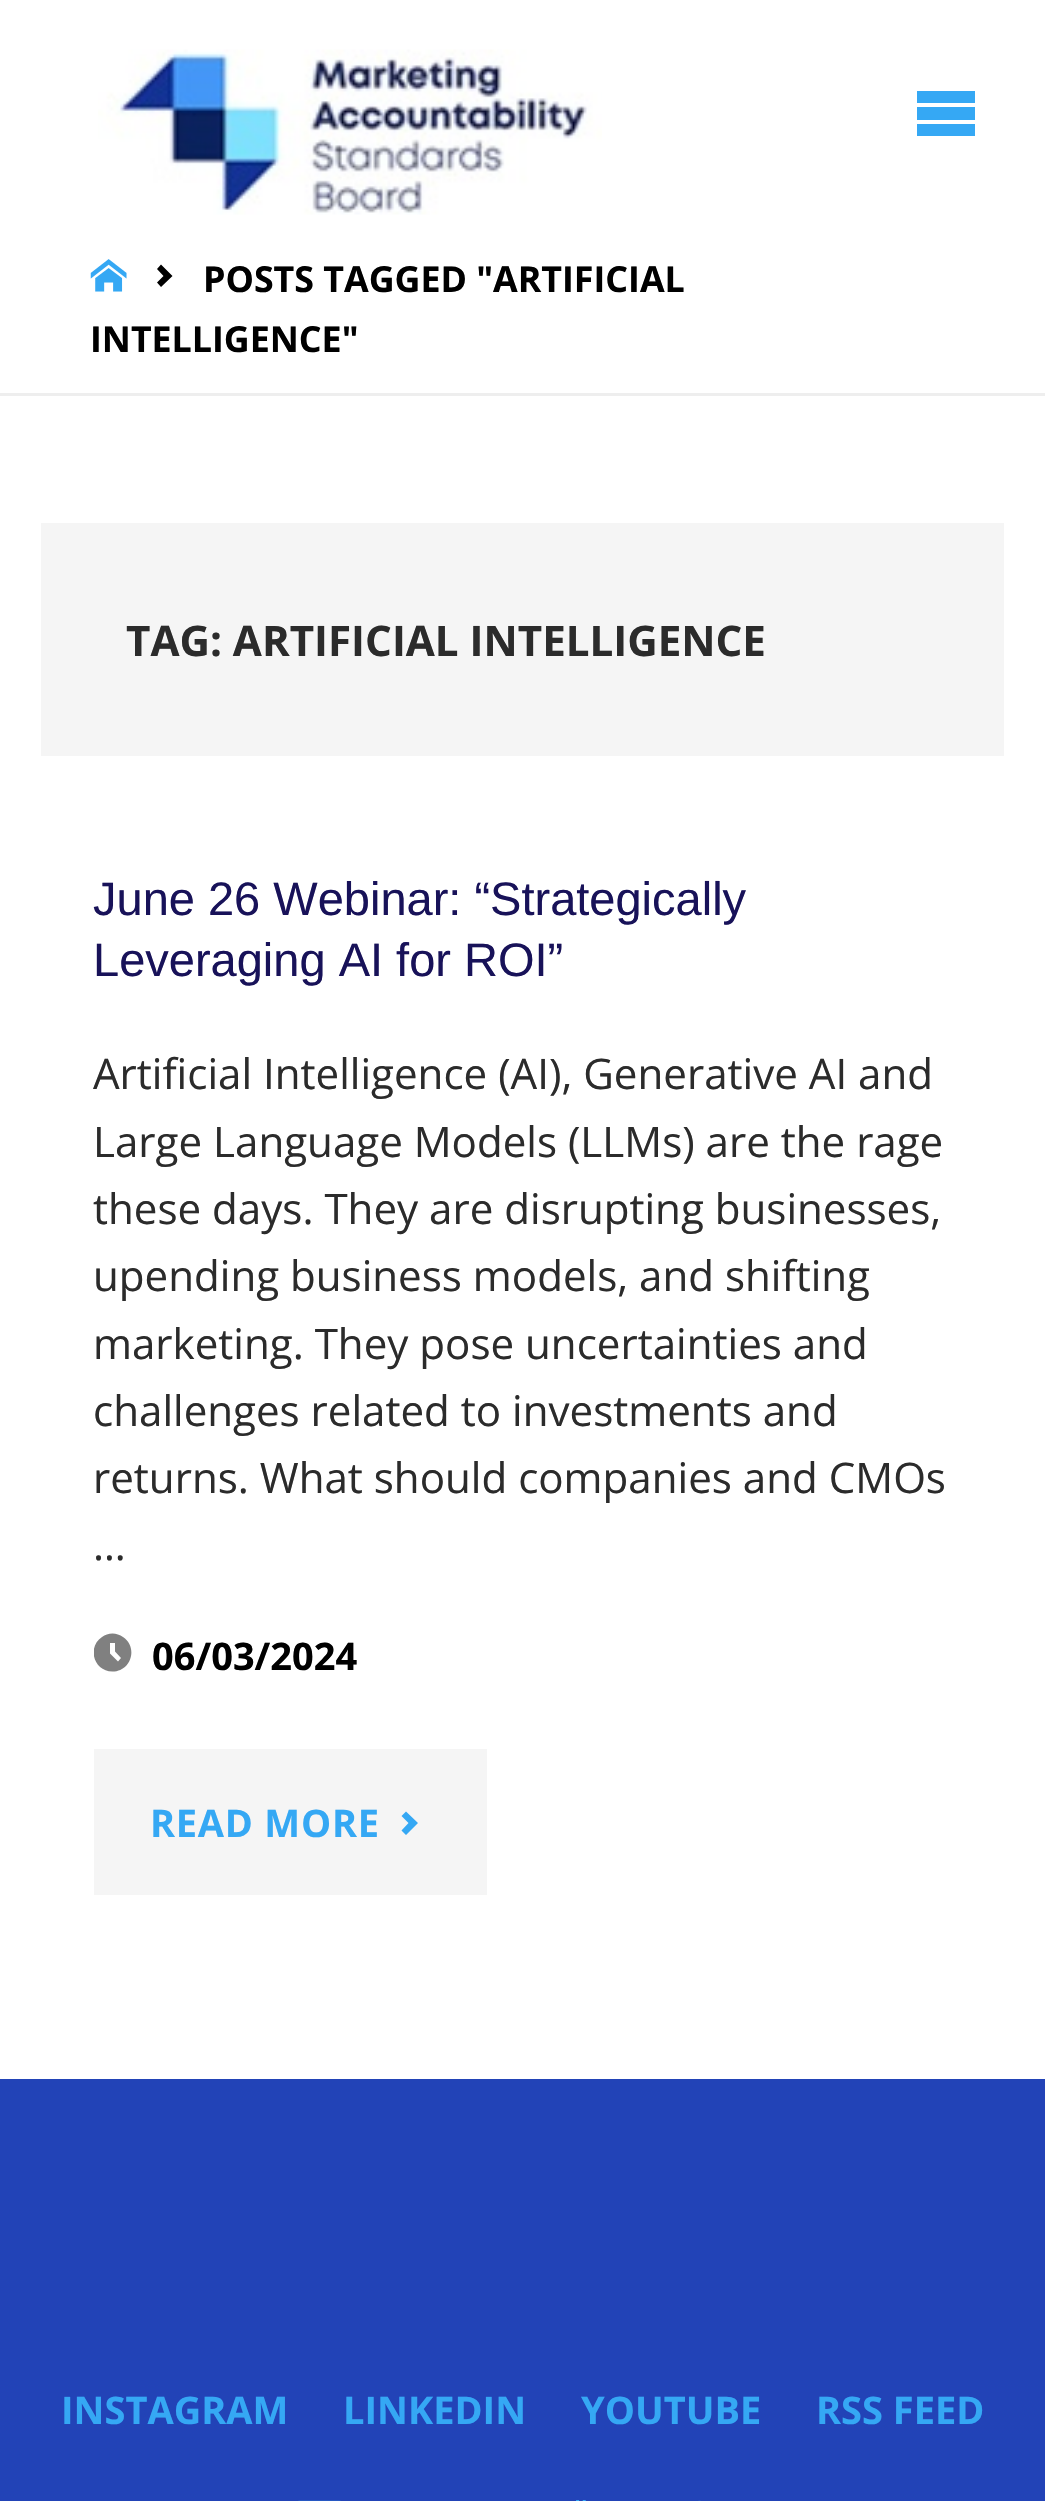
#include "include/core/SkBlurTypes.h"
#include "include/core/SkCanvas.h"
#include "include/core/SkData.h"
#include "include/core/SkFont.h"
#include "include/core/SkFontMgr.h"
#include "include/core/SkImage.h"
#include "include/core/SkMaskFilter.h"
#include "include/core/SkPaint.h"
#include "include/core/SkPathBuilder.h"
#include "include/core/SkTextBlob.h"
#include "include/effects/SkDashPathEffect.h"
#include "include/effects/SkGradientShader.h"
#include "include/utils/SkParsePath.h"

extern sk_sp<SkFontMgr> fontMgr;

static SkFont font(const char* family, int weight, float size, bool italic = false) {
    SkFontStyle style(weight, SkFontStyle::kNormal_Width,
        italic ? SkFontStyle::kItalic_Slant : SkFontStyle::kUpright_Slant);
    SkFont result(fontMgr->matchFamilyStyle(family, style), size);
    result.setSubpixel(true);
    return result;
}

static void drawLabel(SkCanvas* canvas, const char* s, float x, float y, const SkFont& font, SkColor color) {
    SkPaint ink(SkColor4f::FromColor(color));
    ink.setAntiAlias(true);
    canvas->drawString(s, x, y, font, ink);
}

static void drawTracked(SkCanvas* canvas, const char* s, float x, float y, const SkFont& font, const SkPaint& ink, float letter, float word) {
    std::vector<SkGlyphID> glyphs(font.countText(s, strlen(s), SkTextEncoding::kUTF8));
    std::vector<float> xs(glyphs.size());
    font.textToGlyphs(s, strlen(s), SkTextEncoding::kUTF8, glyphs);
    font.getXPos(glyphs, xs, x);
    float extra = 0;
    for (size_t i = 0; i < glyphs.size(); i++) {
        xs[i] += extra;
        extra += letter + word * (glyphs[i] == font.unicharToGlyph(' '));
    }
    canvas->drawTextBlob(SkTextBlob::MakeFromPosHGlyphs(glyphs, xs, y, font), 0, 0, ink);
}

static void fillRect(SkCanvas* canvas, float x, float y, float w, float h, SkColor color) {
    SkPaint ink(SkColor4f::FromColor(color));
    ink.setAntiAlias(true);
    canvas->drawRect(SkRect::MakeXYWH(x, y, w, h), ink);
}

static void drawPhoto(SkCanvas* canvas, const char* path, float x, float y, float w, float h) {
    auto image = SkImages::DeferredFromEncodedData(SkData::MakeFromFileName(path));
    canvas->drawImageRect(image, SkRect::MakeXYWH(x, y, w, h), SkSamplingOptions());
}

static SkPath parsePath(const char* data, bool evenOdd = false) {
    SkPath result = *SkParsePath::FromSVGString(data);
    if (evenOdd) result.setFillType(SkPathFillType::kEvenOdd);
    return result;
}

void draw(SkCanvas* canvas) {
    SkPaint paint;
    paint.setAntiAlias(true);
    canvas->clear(0xFF2243B7);
    fillRect(canvas, 0, 0, 1045, 393, 0xFFFFFFFF);
    drawPhoto(canvas, "assets/img1.png", 98, 49, 504, 166);
    paint.setColor(0xFF35A8F4);
    canvas->drawPath(parsePath("M917 91H975V103H917ZM917 107H975V120H917ZM917 124H975V136H917Z"), paint);
    fillRect(canvas, 0, 393, 1045, 3, 0xFFEEEEEE);
    drawPhoto(canvas, "assets/img2.png", 90, 259, 37, 33);
    paint.setColor(0xFF000000);
    canvas->drawPath(parsePath("M161 264.5L157 269L163.5 276L157 282.5L161 287L172.5 276Z"), paint);
    SkFont font1 = font("Open Sans", 700, 35.75f);
    drawLabel(canvas, "POSTS TAGGED \"ARTIFICIAL", 203, 292, font1, 0xFF000000);
    drawLabel(canvas, "INTELLIGENCE\"", 90, 352, font1, 0xFF000000);
    fillRect(canvas, 0, 396, 1045, 1683, 0xFFFFFFFF);
    fillRect(canvas, 41, 523, 963, 233, 0xFFF5F5F5);
    SkFont font2 = font("Open Sans", 700, 42.1f);
    drawLabel(canvas, "TAG: ARTIFICIAL INTELLIGENCE", 126, 656, font2, 0xFF2B2B2B);
    SkFont font3 = font("Liberation Sans", 400, 47);
    drawLabel(canvas, "June 26 Webinar: “Strategically", 93, 915, font3, 0xFF181259);
    drawLabel(canvas, "Leveraging AI for ROI”", 93, 976, font3, 0xFF181259);
    SkFont font4 = font("Open Sans", 400, 42.1f);
    drawLabel(canvas, "Artificial Intelligence (AI), Generative AI and", 93, 1089, font4, 0xFF2B2B2B);
    drawLabel(canvas, "Large Language Models (LLMs) are the rage", 93, 1157, font4, 0xFF2B2B2B);
    drawLabel(canvas, "these days. They are disrupting businesses,", 93, 1224, font4, 0xFF2B2B2B);
    drawLabel(canvas, "upending business models, and shifting", 93, 1291, font4, 0xFF2B2B2B);
    drawLabel(canvas, "marketing. They pose uncertainties and", 93, 1359, font4, 0xFF2B2B2B);
    drawLabel(canvas, "challenges related to investments and", 93, 1426, font4, 0xFF2B2B2B);
    drawLabel(canvas, "returns. What should companies and CMOs", 93, 1493, font4, 0xFF2B2B2B);
    drawLabel(canvas, "…", 93, 1560, font4, 0xFF2B2B2B);
    canvas->save();
    canvas->clipRect(SkRect::MakeXYWH(94, 1620, 858, 110));
    paint.setColor(0xFF808080);
    canvas->drawPath(parsePath("M112.5 1633.5C108.5 1633.5 105 1635 102 1637C86.5 1647.5 94 1671.5 112.5 1671.5C131 1671.5 138.5 1647.5 123 1637C120 1635 116 1633.5 112.5 1633.5ZM118 1661.5L110 1653.5V1643H115V1651.5L121 1658Z"), paint);
    canvas->restore();
    SkFont font5 = font("Open Sans", 700, 38);
    drawLabel(canvas, "06/03/2024", 152, 1670, font5, 0xFF000000);
    fillRect(canvas, 94, 1749, 393, 146, 0xFFF5F5F5);
    paint.setColor(0xFF35A8F4);
    drawTracked(canvas, "READ MORE", 150, 1837, font5, paint, 0.75f, 0);
    canvas->drawPath(parsePath("M406 1811.5L401.5 1816L408.5 1823L401.5 1830.5L406 1835L418 1823Z"), paint);
    drawLabel(canvas, "INSTAGRAM", 61, 2424, font5, 0xFF35A8F4);
    drawLabel(canvas, "LINKEDIN", 343, 2424, font5, 0xFF35A8F4);
    drawLabel(canvas, "YOUTUBE", 581, 2424, font5, 0xFF35A8F4);
    drawLabel(canvas, "RSS FEED", 816, 2424, font5, 0xFF35A8F4);
    drawPhoto(canvas, "assets/img3.png", 298, 2500, 43, 1);
    drawPhoto(canvas, "assets/img4.png", 576, 2500, 10, 1);
    drawPhoto(canvas, "assets/img5.png", 698, 2500, 3, 1);
}
